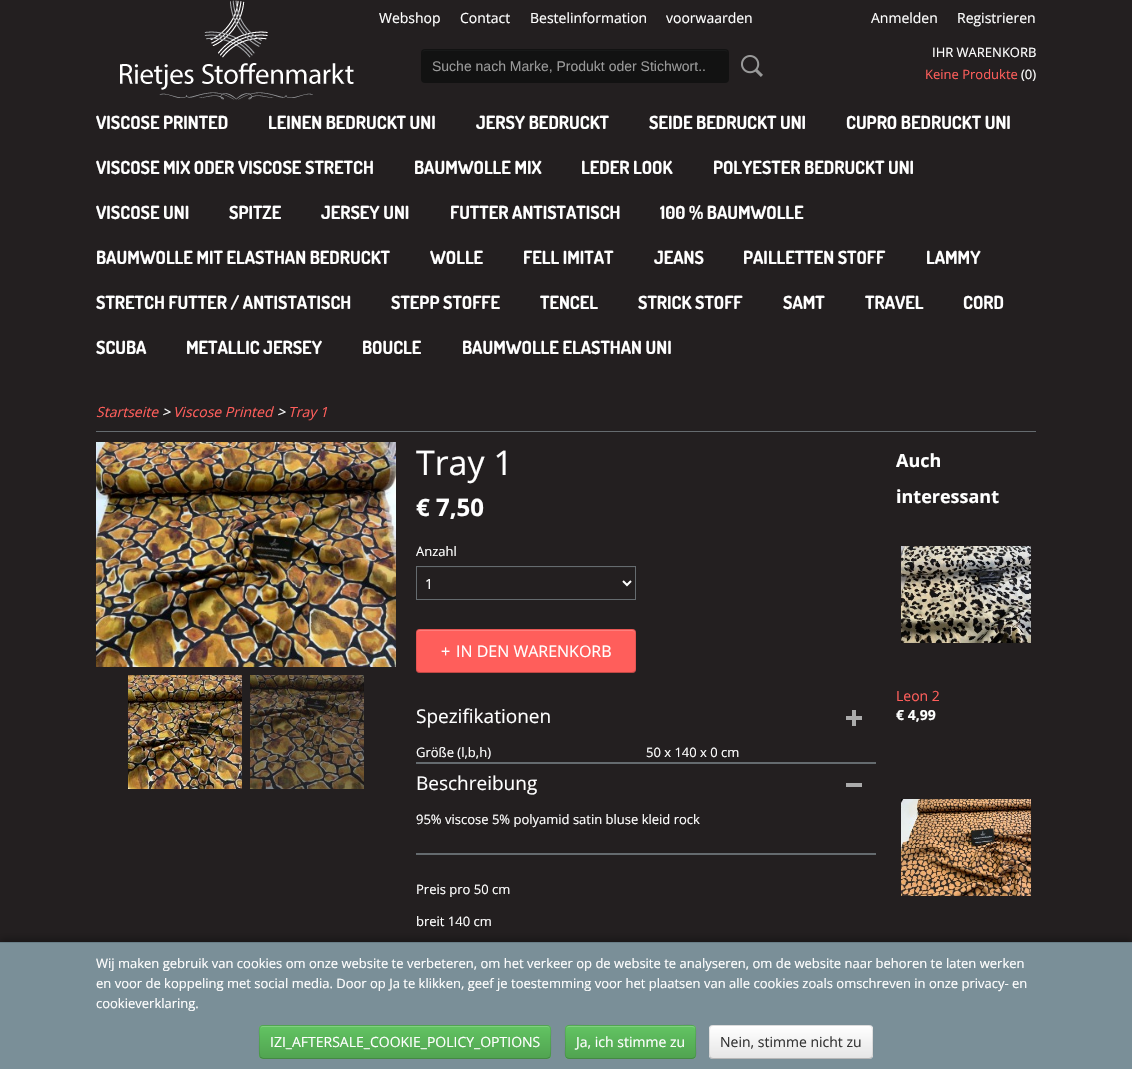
#include "include/core/SkBlurTypes.h"
#include "include/core/SkCanvas.h"
#include "include/core/SkData.h"
#include "include/core/SkFont.h"
#include "include/core/SkFontMgr.h"
#include "include/core/SkImage.h"
#include "include/core/SkMaskFilter.h"
#include "include/core/SkPaint.h"
#include "include/core/SkPathBuilder.h"
#include "include/core/SkTextBlob.h"
#include "include/effects/SkDashPathEffect.h"
#include "include/effects/SkGradientShader.h"
#include "include/utils/SkParsePath.h"

extern sk_sp<SkFontMgr> fontMgr;

static SkFont font(const char* family, int weight, float size, bool italic = false) {
    SkFontStyle style(weight, SkFontStyle::kNormal_Width,
        italic ? SkFontStyle::kItalic_Slant : SkFontStyle::kUpright_Slant);
    SkFont result(fontMgr->matchFamilyStyle(family, style), size);
    result.setSubpixel(true);
    return result;
}

static void drawLabel(SkCanvas* canvas, const char* s, float x, float y, const SkFont& font, SkColor color) {
    SkPaint ink(SkColor4f::FromColor(color));
    ink.setAntiAlias(true);
    canvas->drawString(s, x, y, font, ink);
}

static void fillRect(SkCanvas* canvas, float x, float y, float w, float h, SkColor color) {
    SkPaint ink(SkColor4f::FromColor(color));
    ink.setAntiAlias(true);
    canvas->drawRect(SkRect::MakeXYWH(x, y, w, h), ink);
}

static void fillRRect(SkCanvas* canvas, float x, float y, float w, float h, float radius, SkColor color) {
    SkPaint ink(SkColor4f::FromColor(color));
    ink.setAntiAlias(true);
    canvas->drawRoundRect(SkRect::MakeXYWH(x, y, w, h), radius, radius, ink);
}

static void drawPhoto(SkCanvas* canvas, const char* path, float x, float y, float w, float h) {
    auto image = SkImages::DeferredFromEncodedData(SkData::MakeFromFileName(path));
    canvas->drawImageRect(image, SkRect::MakeXYWH(x, y, w, h), SkSamplingOptions());
}

static SkPath parsePath(const char* data, bool evenOdd = false) {
    SkPath result = *SkParsePath::FromSVGString(data);
    if (evenOdd) result.setFillType(SkPathFillType::kEvenOdd);
    return result;
}

void draw(SkCanvas* canvas) {
    SkPaint paint;
    paint.setAntiAlias(true);
    canvas->clear(0xFF231F20);
    drawPhoto(canvas, "assets/img1.png", 120, 0, 234, 100);
    SkFont font1 = font("Open Sans", 400, 14);
    drawLabel(canvas, "Webshop", 379, 23, font1, 0xFFFFFFFF);
    drawLabel(canvas, "Contact", 460, 23, font1, 0xFFFFFFFF);
    drawLabel(canvas, "Bestelinformation", 530, 23, font1, 0xFFFFFFFF);
    drawLabel(canvas, "voorwaarden", 666, 23, font1, 0xFFFFFFFF);
    drawLabel(canvas, "Anmelden", 871, 23, font1, 0xFFFFFFFF);
    drawLabel(canvas, "Registrieren", 957, 23, font1, 0xFFFFFFFF);
    SkFont font2 = font("Open Sans", 400, 13);
    drawLabel(canvas, "IHR WARENKORB", 932, 57, font2, 0xFFFFFFFF);
    drawLabel(canvas, "Keine Produkte", 925, 79, font2, 0xFFFF5E5B);
    drawLabel(canvas, "(0)", 1021, 79, font2, 0xFFFFFFFF);
    fillRRect(canvas, 421, 49, 308, 34, 4, 0xFF121212);
    paint.setColor(0xFF181919);
    canvas->drawPath(parsePath("M425 51H725C727 51 728 52 728 54L727 51L726 50H425C423 50 422 52 422 54C422 52 423 51 425 51Z"), paint);
    SkFont font3 = font("Liberation Sans", 400, 14);
    drawLabel(canvas, "Suche nach Marke, Produkt oder Stichwort..", 432, 71, font3, 0xFF999999);
    drawPhoto(canvas, "assets/img2.png", 741, 55, 22, 22);
    SkFont font4 = font("Dosis", 700, 18);
    drawLabel(canvas, "VISCOSE PRINTED", 96, 129, font4, 0xFFFFFFFF);
    drawLabel(canvas, "LEINEN BEDRUCKT UNI", 268, 129, font4, 0xFFFFFFFF);
    drawLabel(canvas, "JERSY BEDRUCKT", 476, 129, font4, 0xFFFFFFFF);
    drawLabel(canvas, "SEIDE BEDRUCKT UNI", 649, 129, font4, 0xFFFFFFFF);
    drawLabel(canvas, "CUPRO BEDRUCKT UNI", 846, 129, font4, 0xFFFFFFFF);
    drawLabel(canvas, "VISCOSE MIX ODER VISCOSE STRETCH", 96, 174, font4, 0xFFFFFFFF);
    drawLabel(canvas, "BAUMWOLLE MIX", 414, 174, font4, 0xFFFFFFFF);
    drawLabel(canvas, "LEDER LOOK", 581, 174, font4, 0xFFFFFFFF);
    drawLabel(canvas, "POLYESTER BEDRUCKT UNI", 713, 174, font4, 0xFFFFFFFF);
    drawLabel(canvas, "VISCOSE UNI", 96, 219, font4, 0xFFFFFFFF);
    drawLabel(canvas, "SPITZE", 229, 219, font4, 0xFFFFFFFF);
    drawLabel(canvas, "JERSEY UNI", 321, 219, font4, 0xFFFFFFFF);
    drawLabel(canvas, "FUTTER ANTISTATISCH", 450, 219, font4, 0xFFFFFFFF);
    drawLabel(canvas, "100 % BAUMWOLLE", 660, 219, font4, 0xFFFFFFFF);
    drawLabel(canvas, "BAUMWOLLE MIT ELASTHAN BEDRUCKT", 96, 264, font4, 0xFFFFFFFF);
    drawLabel(canvas, "WOLLE", 430, 264, font4, 0xFFFFFFFF);
    drawLabel(canvas, "FELL IMITAT", 523, 264, font4, 0xFFFFFFFF);
    drawLabel(canvas, "JEANS", 654, 264, font4, 0xFFFFFFFF);
    drawLabel(canvas, "PAILLETTEN STOFF", 743, 264, font4, 0xFFFFFFFF);
    drawLabel(canvas, "LAMMY", 926, 264, font4, 0xFFFFFFFF);
    drawLabel(canvas, "STRETCH FUTTER / ANTISTATISCH", 96, 309, font4, 0xFFFFFFFF);
    drawLabel(canvas, "STEPP STOFFE", 391, 309, font4, 0xFFFFFFFF);
    drawLabel(canvas, "TENCEL", 540, 309, font4, 0xFFFFFFFF);
    drawLabel(canvas, "STRICK STOFF", 638, 309, font4, 0xFFFFFFFF);
    drawLabel(canvas, "SAMT", 783, 309, font4, 0xFFFFFFFF);
    drawLabel(canvas, "TRAVEL", 865, 309, font4, 0xFFFFFFFF);
    drawLabel(canvas, "CORD", 963, 309, font4, 0xFFFFFFFF);
    drawLabel(canvas, "SCUBA", 96, 354, font4, 0xFFFFFFFF);
    drawLabel(canvas, "METALLIC JERSEY", 186, 354, font4, 0xFFFFFFFF);
    drawLabel(canvas, "BOUCLE", 362, 354, font4, 0xFFFFFFFF);
    drawLabel(canvas, "BAUMWOLLE ELASTHAN UNI", 462, 354, font4, 0xFFFFFFFF);
    fillRect(canvas, 96, 431, 940, 1, 0xFF656B6F);
    SkFont font5 = font("Open Sans", 400, 14, true);
    drawLabel(canvas, "Startseite", 96, 417, font5, 0xFFFF5E5B);
    drawLabel(canvas, ">", 162, 417, font5, 0xFFFFFFFF);
    drawLabel(canvas, "Viscose Printed", 173, 417, font5, 0xFFFF5E5B);
    drawLabel(canvas, ">", 277, 417, font5, 0xFFFFFFFF);
    drawLabel(canvas, "Tray 1", 288, 417, font5, 0xFFFF5E5B);
    drawPhoto(canvas, "assets/img3.png", 96, 442, 300, 225);
    drawPhoto(canvas, "assets/img4.png", 128, 675, 114, 114);
    drawPhoto(canvas, "assets/img5.png", 250, 675, 114, 114);
    SkFont font6 = font("Open Sans", 400, 34);
    drawLabel(canvas, "Tray 1", 416, 475, font6, 0xFFFFFFFF);
    SkFont font7 = font("Open Sans", 700, 24);
    drawLabel(canvas, "€ 7,50", 416, 516, font7, 0xFFFFFFFF);
    drawLabel(canvas, "Anzahl", 416, 556, font2, 0xFFFFFFFF);
    fillRect(canvas, 417, 567, 218, 1, 0xFF282526);
    paint.setStroke(true);
    paint.setStrokeWidth(1);
    paint.setColor(0xFF656B6F);
    canvas->drawRect(SkRect::MakeXYWH(416.5f, 566.5f, 219, 33), paint);
    paint.setStrokeWidth(2);
    paint.setColor(0xFFFFFFFF);
    canvas->drawPath(parsePath("M623 581L627 585L631 581"), paint);
    drawLabel(canvas, "1", 425, 589, font1, 0xFFFFFFFF);
    fillRRect(canvas, 416, 629, 220, 44, 4, 0xFFFF5E5B);
    paint.setStroke(false);
    paint.setColor(0xFFFF7E7C);
    canvas->drawPath(parsePath("M420 631H632C634 631 635 632 635 634V633C635 631 634 630 632 630H420C418 630 417 631 417 633V634C417 632 418 631 420 631Z"), paint);
    paint.setStroke(true);
    paint.setStrokeWidth(1);
    paint.setColor(0x40000000);
    canvas->drawPath(parsePath("M634.5 671.5C634 672 633 672.5 632 672.5H420C419 672.5 418 672 417.5 671.5"), paint);
    paint.setColor(0x1A000000);
    canvas->drawPath(parsePath("M417.5 671.5C417 671 416.5 670 416.5 669V633C416.5 632 417 631 417.5 630.5C418 630 419 629.5 420 629.5H632C633 629.5 634 630 634.5 630.5C635 631 635.5 632 635.5 633V669C635.5 670 635 671 634.5 671.5"), paint);
    SkFont font8 = font("Open Sans", 400, 16);
    drawLabel(canvas, "+", 441, 657, font8, 0xFFFFFFFF);
    drawLabel(canvas, "IN DEN WARENKORB", 456, 657, font8, 0xFFFFFFFF);
    fillRect(canvas, 416, 762, 460, 2, 0xFF656B6F);
    drawPhoto(canvas, "assets/img6.png", 846, 710, 16, 16);
    SkFont font9 = font("Open Sans", 400, 19);
    drawLabel(canvas, "Spezifikationen", 416, 723, font9, 0xFFFFFFFF);
    drawLabel(canvas, "Größe (l,b,h)", 416, 757, font2, 0xFFFFFFFF);
    drawLabel(canvas, "50 x 140 x 0 cm", 646, 757, font2, 0xFFFFFFFF);
    fillRect(canvas, 846, 783, 16, 4, 0xFFABABAB);
    drawLabel(canvas, "Beschreibung", 416, 790, font9, 0xFFFFFFFF);
    drawLabel(canvas, "95% viscose 5% polyamid satin bluse kleid rock", 416, 824, font2, 0xFFFFFFFF);
    fillRect(canvas, 416, 853, 460, 2, 0xFF656B6F);
    drawLabel(canvas, "Preis pro 50 cm", 416, 894, font2, 0xFFFFFFFF);
    drawLabel(canvas, "breit 140 cm", 416, 926, font2, 0xFFFFFFFF);
    SkFont font10 = font("Open Sans", 700, 18);
    drawLabel(canvas, "Auch", 896, 467, font10, 0xFFFFFFFF);
    drawLabel(canvas, "interessant", 896, 503, font10, 0xFFFFFFFF);
    drawPhoto(canvas, "assets/img7.png", 901, 546, 130, 97);
    drawLabel(canvas, "Leon 2", 896, 701, font1, 0xFFFF5E5B);
    SkFont font11 = font("Open Sans", 700, 14);
    drawLabel(canvas, "€ 4,99", 896, 720, font11, 0xFFFFFFFF);
    drawPhoto(canvas, "assets/img8.png", 901, 799, 130, 97);
    paint.setStroke(false);
    paint.setColor(0x4D000000);
    paint.setMaskFilter(SkMaskFilter::MakeBlur(kNormal_SkBlurStyle, 3.5f));
    canvas->drawRect(SkRect::MakeXYWH(0, 939, 1132, 127), paint);
    paint.setMaskFilter(nullptr);
    fillRect(canvas, 0, 943, 1132, 126, 0xFF7A8F98);
    fillRect(canvas, 0, 942, 1132, 1, 0xFF697E87);
    drawLabel(canvas, "Wij maken gebruik van cookies om onze website te verbeteren, om het verkeer op de website te analyseren, om de website naar behoren te laten werken", 96, 968, font2, 0xFFFFFFFF);
    drawLabel(canvas, "en voor de koppeling met social media. Door op Ja te klikken, geef je toestemming voor het plaatsen van alle cookies zoals omschreven in onze privacy- en", 96, 988, font2, 0xFFFFFFFF);
    drawLabel(canvas, "cookieverklaring.", 96, 1008, font2, 0xFFFFFFFF);
    fillRRect(canvas, 259, 1025, 292, 34, 4, 0xFF5BB75B);
    canvas->save();
    canvas->clipPath(parsePath("M263 1025H547C549 1025 551 1027 551 1029V1055C551 1057 549 1059 547 1059H263C261 1059 259 1057 259 1055V1029C259 1027 261 1025 263 1025Z"), true);
    {
        const SkColor colors[] = {0xFF62C462, 0xFF51A351};
        const float stops[] = {0, 1};
        const SkPoint ends[] = {{405, 1026}, {405, 1058}};
        paint.setShader(SkGradientShader::MakeLinear(ends, colors, stops, 2, SkTileMode::kClamp));
        paint.setAlpha(255);
    }
    canvas->drawRect(SkRect::MakeXYWH(259, 1026, 292, 32), paint);
    canvas->restore();
    paint.setShader(nullptr);
    paint.setColor(0xFF81CF81);
    canvas->drawPath(parsePath("M263 1027H547C549 1027 550 1028 550 1030C550 1028 549 1026 547 1026H263C261 1026 260 1028 260 1030C260 1028 261 1027 263 1027Z"), paint);
    paint.setStroke(true);
    paint.setColor(0x40000000);
    canvas->drawPath(parsePath("M549.5 1057.5L547 1058.5H263L260.5 1057.5"), paint);
    paint.setColor(0x1A000000);
    canvas->drawPath(parsePath("M260.5 1057.5C258.5 1055 259.5 1041 259.5 1037.5C259.5 1035 257.5 1025.5 263 1025.5H547C552.5 1025.5 550.5 1035 550.5 1037.5C550.5 1041 551.5 1055 549.5 1057.5"), paint);
    drawLabel(canvas, "IZI_AFTERSALE_COOKIE_POLICY_OPTIONS", 270, 1047, font1, 0xFFFFFFFF);
    fillRRect(canvas, 565, 1025, 131, 34, 4, 0xFF5BB75B);
    canvas->save();
    canvas->clipPath(parsePath("M569 1025H692C694 1025 696 1027 696 1029V1055C696 1057 694 1059 692 1059H569C567 1059 565 1057 565 1055V1029C565 1027 567 1025 569 1025Z"), true);
    paint.setStroke(false);
    {
        const SkColor colors[] = {0xFF62C462, 0xFF51A351};
        const float stops[] = {0, 1};
        const SkPoint ends[] = {{631, 1026}, {631, 1058}};
        paint.setShader(SkGradientShader::MakeLinear(ends, colors, stops, 2, SkTileMode::kClamp));
        paint.setAlpha(255);
    }
    canvas->drawRect(SkRect::MakeXYWH(565, 1026, 131, 32), paint);
    canvas->restore();
    paint.setShader(nullptr);
    paint.setColor(0xFF81CF81);
    canvas->drawPath(parsePath("M569 1027H692C694 1027 695 1028 695 1030C695 1028 695 1026 693 1026H569C567 1026 566 1028 566 1030C566 1028 567 1027 569 1027Z"), paint);
    paint.setStroke(true);
    paint.setColor(0x40000000);
    canvas->drawPath(parsePath("M694.5 1057.5C694 1058 693 1058.5 692 1058.5H569C568 1058.5 567 1058 566.5 1057.5"), paint);
    paint.setColor(0x1A000000);
    canvas->drawPath(parsePath("M566.5 1057.5C564 1055 565.5 1049 565.5 1046.5C565.5 1020.5 561 1025.5 589.5 1025.5H671.5C700 1025.5 695.5 1020.5 695.5 1046.5C695.5 1049 697 1055 694.5 1057.5"), paint);
    drawLabel(canvas, "Ja, ich stimme zu", 576, 1047, font1, 0xFFFFFFFF);
    fillRRect(canvas, 709, 1025, 164, 34, 4, 0xFFF5F5F5);
    canvas->save();
    canvas->clipPath(parsePath("M713 1025H869C871 1025 873 1027 873 1029V1055C873 1057 871 1059 869 1059H713C711 1059 709 1057 709 1055V1029C709 1027 711 1025 713 1025Z"), true);
    paint.setStroke(false);
    {
        const SkColor colors[] = {0xFFFFFFFF, 0xFFE6E6E6};
        const float stops[] = {0, 1};
        const SkPoint ends[] = {{791, 1026}, {791, 1058}};
        paint.setShader(SkGradientShader::MakeLinear(ends, colors, stops, 2, SkTileMode::kClamp));
        paint.setAlpha(255);
    }
    canvas->drawRect(SkRect::MakeXYWH(709, 1026, 164, 32), paint);
    canvas->restore();
    paint.setStroke(true);
    paint.setShader(nullptr);
    paint.setColor(0x40000000);
    canvas->drawPath(parsePath("M871.5 1057.5C871 1058 870 1058.5 869 1058.5H713C712 1058.5 711 1058 710.5 1057.5"), paint);
    paint.setColor(0x1A000000);
    canvas->drawPath(parsePath("M710.5 1057.5C708.5 1055 709.5 1045 709.5 1042V1033.5C709.5 1030.5 709 1025.5 713 1025.5H869C873 1025.5 872.5 1030.5 872.5 1033.5V1042C872.5 1045 873.5 1055 871.5 1057.5"), paint);
    drawLabel(canvas, "Nein, stimme nicht zu", 720, 1047, font1, 0xFF333333);
}
